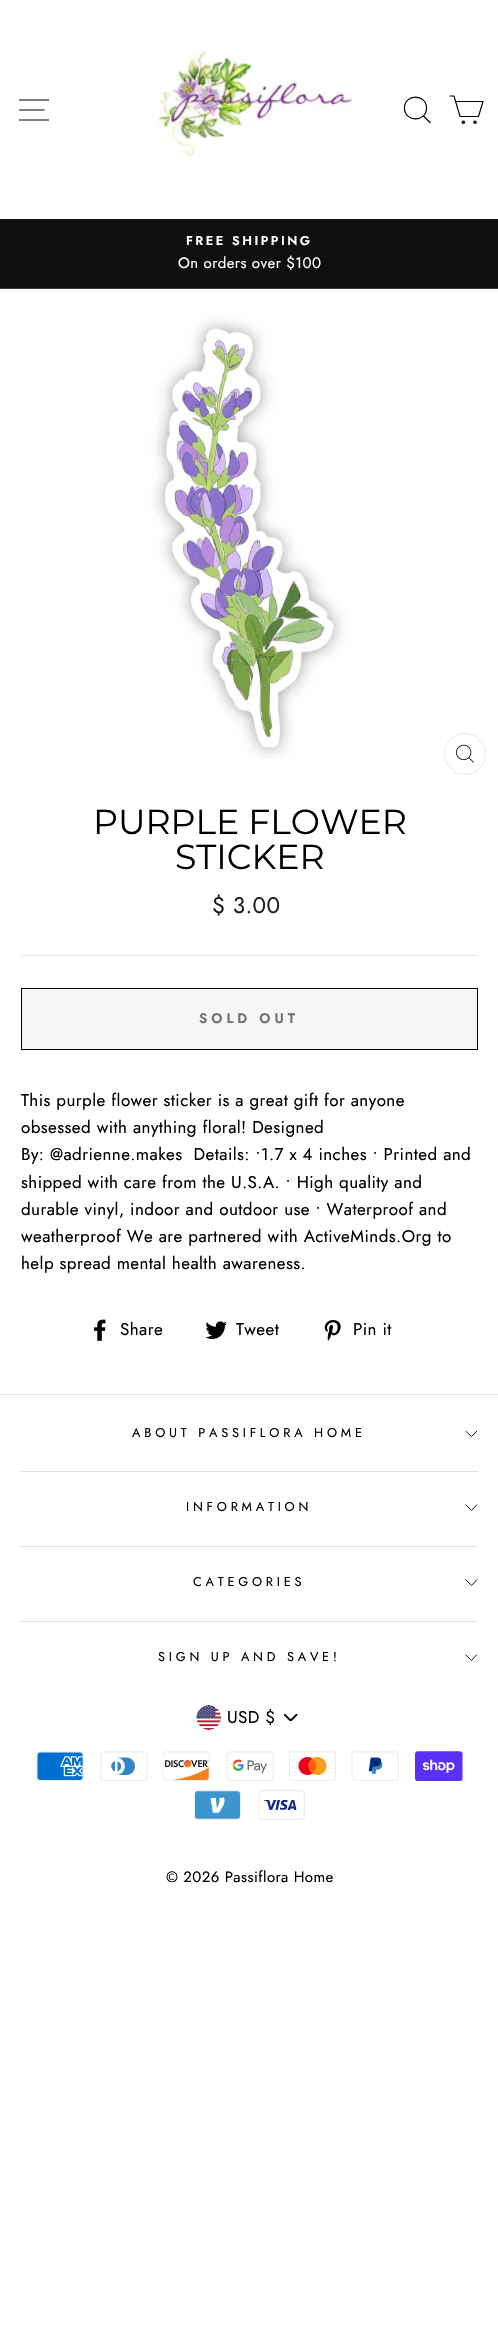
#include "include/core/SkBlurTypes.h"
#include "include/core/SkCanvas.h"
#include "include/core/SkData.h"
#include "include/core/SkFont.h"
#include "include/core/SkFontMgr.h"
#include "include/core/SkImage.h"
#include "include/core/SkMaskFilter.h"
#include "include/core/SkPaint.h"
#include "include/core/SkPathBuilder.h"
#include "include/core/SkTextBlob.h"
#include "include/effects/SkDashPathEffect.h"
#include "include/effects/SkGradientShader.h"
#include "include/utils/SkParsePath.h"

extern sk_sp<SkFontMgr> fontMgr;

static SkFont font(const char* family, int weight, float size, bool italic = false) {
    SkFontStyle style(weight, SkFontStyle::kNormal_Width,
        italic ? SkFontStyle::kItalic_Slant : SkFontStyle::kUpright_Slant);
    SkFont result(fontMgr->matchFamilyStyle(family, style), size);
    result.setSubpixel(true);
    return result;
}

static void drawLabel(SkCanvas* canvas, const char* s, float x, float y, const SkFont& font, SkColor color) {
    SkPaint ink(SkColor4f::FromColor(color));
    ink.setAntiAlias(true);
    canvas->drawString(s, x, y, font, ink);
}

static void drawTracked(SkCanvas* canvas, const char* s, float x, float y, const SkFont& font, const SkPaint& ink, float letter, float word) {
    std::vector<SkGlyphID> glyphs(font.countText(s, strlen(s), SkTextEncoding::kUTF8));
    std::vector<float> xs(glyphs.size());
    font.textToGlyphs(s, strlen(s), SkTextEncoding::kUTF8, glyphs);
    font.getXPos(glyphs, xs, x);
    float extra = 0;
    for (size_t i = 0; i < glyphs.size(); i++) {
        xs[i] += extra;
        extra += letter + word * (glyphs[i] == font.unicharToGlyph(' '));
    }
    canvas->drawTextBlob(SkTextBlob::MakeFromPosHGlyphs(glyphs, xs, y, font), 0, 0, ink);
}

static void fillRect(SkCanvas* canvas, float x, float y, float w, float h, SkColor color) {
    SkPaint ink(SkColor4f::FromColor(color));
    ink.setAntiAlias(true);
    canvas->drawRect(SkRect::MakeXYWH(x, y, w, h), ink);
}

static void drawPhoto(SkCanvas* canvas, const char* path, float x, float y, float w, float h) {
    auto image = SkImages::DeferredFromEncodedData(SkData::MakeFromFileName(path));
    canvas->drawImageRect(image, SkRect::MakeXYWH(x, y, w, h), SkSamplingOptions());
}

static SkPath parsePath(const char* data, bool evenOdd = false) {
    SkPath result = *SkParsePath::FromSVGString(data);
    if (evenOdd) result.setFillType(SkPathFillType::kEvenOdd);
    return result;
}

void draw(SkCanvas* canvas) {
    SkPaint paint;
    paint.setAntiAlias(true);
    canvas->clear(0xFFFFFFFF);
    paint.setStroke(true);
    paint.setStrokeWidth(1.2f);
    paint.setColor(0xFF000000);
    canvas->drawPath(parsePath("M19 100H49M19 110H44.5M19 120H49"), paint);
    drawPhoto(canvas, "assets/img1.png", 155, 50, 200, 111);
    canvas->drawPath(parsePath("M426.5 108C426.5 122.5 404.5 122.5 404.5 108C404.5 93.5 426.5 93.5 426.5 108ZM430.5 123L423.5 116"), paint);
    canvas->drawPath(parsePath("M455.5 101.5H483L478.5 116.5H460L454 96H449.5"), paint);
    paint.setStroke(false);
    canvas->drawCircle(463.3f, 122.3f, 1.2f, paint);
    paint.setStroke(true);
    canvas->drawCircle(463.3f, 122.3f, 1.2f, paint);
    paint.setStroke(false);
    canvas->drawCircle(475, 122.3f, 1.2f, paint);
    paint.setStroke(true);
    canvas->drawCircle(475, 122.3f, 1.2f, paint);
    fillRect(canvas, 0, 219, 498, 70, 0xFF0F0F0F);
    SkFont font1 = font("Jost", 600, 12.75f);
    paint.setStroke(false);
    paint.setColor(0xFFFFFFFF);
    drawTracked(canvas, "FREE SHIPPING", 186, 245, font1, paint, 2.5f, 0);
    SkFont font2 = font("Jost", 400, 15);
    drawTracked(canvas, "On orders over $100", 178, 268, font2, paint, 0.43f, 0);
    drawPhoto(canvas, "assets/img2.png", 0, 288, 498, 470);
    paint.setStroke(true);
    paint.setStrokeWidth(1);
    paint.setColor(0xFFE8E8E1);
    canvas->drawCircle(465, 754, 20.5f, paint);
    drawPhoto(canvas, "assets/img3.png", 456, 744, 18, 19);
    SkFont font3 = font("Montserrat", 400, 34.75f);
    drawLabel(canvas, "PURPLE FLOWER", 93, 834, font3, 0xFF000000);
    drawLabel(canvas, "STICKER", 175, 869, font3, 0xFF000000);
    SkFont font4 = font("Jost", 400, 22.5f);
    paint.setStroke(false);
    paint.setColor(0xFF1C1D1D);
    drawTracked(canvas, "$ 3.00", 212, 913, font4, paint, 0.43f, 0);
    fillRect(canvas, 21, 955, 457, 1, 0xFFE8E8E1);
    paint.setColor(0xFFF6F6F6);
    canvas->drawRect(SkRect::MakeXYWH(21.5f, 988.5f, 456, 61), paint);
    paint.setStroke(true);
    paint.setColor(0xFF000000);
    canvas->drawRect(SkRect::MakeXYWH(21.5f, 988.5f, 456, 61), paint);
    SkFont font5 = font("Jost", 600, 13.75f);
    paint.setStroke(false);
    paint.setColor(0xFF717171);
    drawTracked(canvas, "SOLD OUT", 199, 1023, font5, paint, 4, 0);
    SkFont font6 = font("Jost", 400, 17);
    paint.setColor(0xFF000000);
    drawTracked(canvas, "This purple flower sticker is a great gift for anyone", 21, 1106, font6, paint, 0.43f, 0);
    drawTracked(canvas, "obsessed with anything floral! Designed", 21, 1133, font6, paint, 0.43f, 0);
    drawTracked(canvas, "By: @adrienne.makes  Details: •1.7 x 4 inches • Printed and", 21, 1160, font6, paint, 0.43f, 0);
    drawTracked(canvas, "shipped with care from the U.S.A. • High quality and", 21, 1188, font6, paint, 0.43f, 0);
    drawTracked(canvas, "durable vinyl, indoor and outdoor use • Waterproof and", 21, 1215, font6, paint, 0.43f, 0);
    drawTracked(canvas, "weatherproof We are partnered with ActiveMinds.Org to", 21, 1242, font6, paint, 0.43f, 0);
    drawTracked(canvas, "help spread mental health awareness.", 21, 1269, font6, paint, 0.43f, 0);
    drawPhoto(canvas, "assets/img4.png", 94, 1319, 12, 22);
    drawTracked(canvas, "Share", 120, 1335, font6, paint, 0.43f, 0);
    drawPhoto(canvas, "assets/img5.png", 205, 1321, 22, 18);
    drawTracked(canvas, "Tweet", 236, 1335, font6, paint, 0.43f, 0);
    drawPhoto(canvas, "assets/img6.png", 324, 1320, 17, 21);
    drawTracked(canvas, "Pin it", 353, 1335, font6, paint, 0.43f, 0);
    fillRect(canvas, 0, 1394, 498, 1, 0xFFE8E8E1);
    SkFont font7 = font("Jost", 400, 12.75f);
    drawTracked(canvas, "ABOUT PASSIFLORA HOME", 132, 1437, font7, paint, 3.8f, 0);
    paint.setStroke(true);
    paint.setStrokeWidth(0.9f);
    canvas->drawPath(parsePath("M465.5 1431L471.5 1436.5L477 1431"), paint);
    fillRect(canvas, 21, 1471, 457, 1, 0xFFE0E0E0);
    paint.setStroke(false);
    drawTracked(canvas, "INFORMATION", 186, 1511, font7, paint, 3.8f, 0);
    paint.setStroke(true);
    canvas->drawPath(parsePath("M465.5 1504.5L471.5 1510.5L477 1504.5"), paint);
    fillRect(canvas, 21, 1546, 457, 1, 0xFFE0E0E0);
    paint.setStroke(false);
    drawTracked(canvas, "CATEGORIES", 193, 1586, font7, paint, 3.8f, 0);
    paint.setStroke(true);
    canvas->drawPath(parsePath("M465.5 1579.5L471.5 1585.5L477 1579.5"), paint);
    fillRect(canvas, 21, 1621, 457, 1, 0xFFE0E0E0);
    paint.setStroke(false);
    drawTracked(canvas, "SIGN UP AND SAVE!", 158, 1661, font7, paint, 3.8f, 0);
    paint.setStroke(true);
    canvas->drawPath(parsePath("M465.5 1654.5L471.5 1660.5L477 1654.5"), paint);
    drawPhoto(canvas, "assets/img7.png", 284, 1714, 14, 7);
    drawPhoto(canvas, "assets/img8.png", 196, 1705, 26, 25);
    paint.setStroke(false);
    drawTracked(canvas, "USD $", 227, 1723, font6, paint, 0.43f, 0);
    drawPhoto(canvas, "assets/img9.png", 36, 1751, 48, 30);
    drawPhoto(canvas, "assets/img10.png", 100, 1751, 48, 30);
    drawPhoto(canvas, "assets/img11.png", 163, 1751, 47, 30);
    drawPhoto(canvas, "assets/img12.png", 226, 1751, 48, 30);
    drawPhoto(canvas, "assets/img13.png", 289, 1751, 47, 30);
    drawPhoto(canvas, "assets/img14.png", 351, 1751, 48, 30);
    drawPhoto(canvas, "assets/img15.png", 415, 1751, 48, 30);
    drawPhoto(canvas, "assets/img16.png", 194, 1790, 47, 30);
    drawPhoto(canvas, "assets/img17.png", 258, 1790, 47, 30);
    drawTracked(canvas, "© 2026 Passiflora Home", 166, 1882, font2, paint, 0.43f, 0);
}
